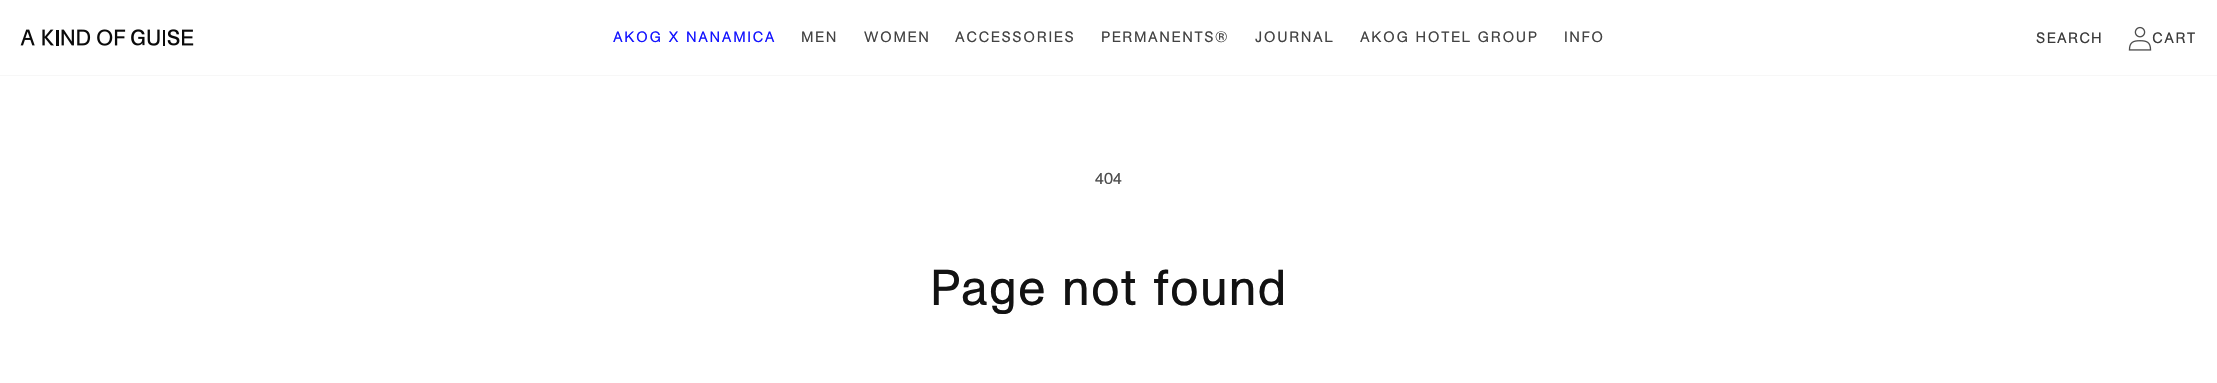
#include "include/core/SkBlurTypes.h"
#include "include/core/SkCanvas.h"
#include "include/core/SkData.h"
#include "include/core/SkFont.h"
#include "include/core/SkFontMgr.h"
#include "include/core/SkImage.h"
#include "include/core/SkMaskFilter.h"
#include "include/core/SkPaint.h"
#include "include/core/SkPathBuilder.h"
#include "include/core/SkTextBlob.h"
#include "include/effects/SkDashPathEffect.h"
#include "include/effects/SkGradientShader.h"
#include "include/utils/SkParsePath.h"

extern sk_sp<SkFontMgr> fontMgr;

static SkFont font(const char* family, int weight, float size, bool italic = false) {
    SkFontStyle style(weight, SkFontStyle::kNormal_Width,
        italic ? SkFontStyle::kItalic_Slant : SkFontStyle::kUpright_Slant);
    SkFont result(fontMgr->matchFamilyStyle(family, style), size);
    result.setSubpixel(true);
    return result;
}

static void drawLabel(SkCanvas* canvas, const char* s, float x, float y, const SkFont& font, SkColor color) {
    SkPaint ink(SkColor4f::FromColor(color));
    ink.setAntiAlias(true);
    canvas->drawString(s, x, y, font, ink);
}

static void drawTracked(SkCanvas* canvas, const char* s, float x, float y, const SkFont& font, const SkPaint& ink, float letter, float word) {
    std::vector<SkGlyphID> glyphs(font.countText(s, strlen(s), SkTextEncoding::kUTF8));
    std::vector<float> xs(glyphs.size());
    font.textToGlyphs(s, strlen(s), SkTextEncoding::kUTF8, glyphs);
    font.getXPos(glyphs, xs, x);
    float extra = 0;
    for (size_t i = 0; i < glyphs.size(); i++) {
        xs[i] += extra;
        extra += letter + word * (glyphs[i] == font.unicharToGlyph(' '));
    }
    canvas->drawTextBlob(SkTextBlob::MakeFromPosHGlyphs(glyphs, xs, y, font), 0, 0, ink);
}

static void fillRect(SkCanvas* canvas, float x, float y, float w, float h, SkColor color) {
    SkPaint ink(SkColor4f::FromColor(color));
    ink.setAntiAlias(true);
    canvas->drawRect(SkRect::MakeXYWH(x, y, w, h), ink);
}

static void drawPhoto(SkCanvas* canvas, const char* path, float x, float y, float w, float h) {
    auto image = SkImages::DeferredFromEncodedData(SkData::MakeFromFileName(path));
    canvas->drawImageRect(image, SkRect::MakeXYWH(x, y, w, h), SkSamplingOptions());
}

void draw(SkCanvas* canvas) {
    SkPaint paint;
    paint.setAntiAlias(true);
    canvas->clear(0xFFFFFFFF);
    fillRect(canvas, 0, 75, 2217, 1, 0xFFF7F7F7);
    drawPhoto(canvas, "assets/img1.png", 20, 29, 174, 17);
    SkFont font1 = font("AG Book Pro", 400, 15);
    paint.setColor(0xFF1414FF);
    drawTracked(canvas, "AKOG X NANAMICA", 613, 42, font1, paint, 1.6f, 0);
    paint.setColor(0xFF434343);
    drawTracked(canvas, "MEN", 801, 42, font1, paint, 1.6f, 0);
    drawTracked(canvas, "WOMEN", 864, 42, font1, paint, 1.6f, 0);
    drawTracked(canvas, "ACCESSORIES", 955, 42, font1, paint, 1.6f, 0);
    drawTracked(canvas, "PERMANENTS®", 1101, 42, font1, paint, 1.6f, 0);
    drawTracked(canvas, "JOURNAL", 1255, 42, font1, paint, 1.6f, 0);
    drawTracked(canvas, "AKOG HOTEL GROUP", 1360, 42, font1, paint, 1.6f, 0);
    drawTracked(canvas, "INFO", 1564, 42, font1, paint, 1.6f, 0);
    paint.setColor(0xFF3B3B3B);
    drawTracked(canvas, "SEARCH", 2036, 43, font1, paint, 1.25f, 0);
    drawPhoto(canvas, "assets/img2.png", 2128, 26, 24, 25);
    drawTracked(canvas, "CART", 2152, 43, font1, paint, 1.6f, 0);
    SkFont font2 = font("AG Book Pro", 400, 16);
    drawLabel(canvas, "404", 1095, 184, font2, 0xFF4D4D4D);
    SkFont font3 = font("AG Book Pro", 400, 50);
    paint.setColor(0xFF121212);
    drawTracked(canvas, "Page not found", 930, 305, font3, paint, 0.75f, 0);
}
